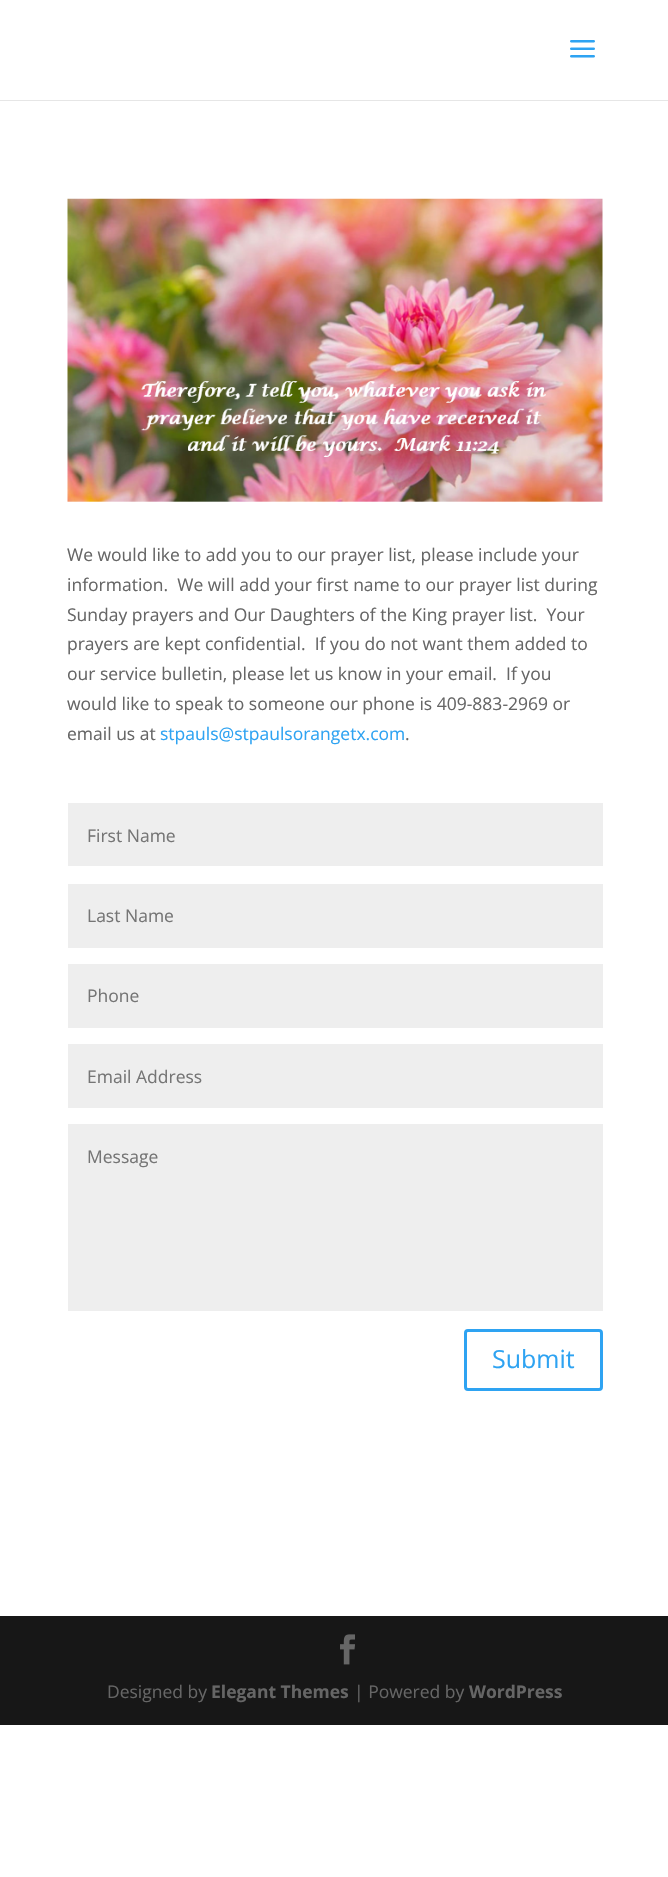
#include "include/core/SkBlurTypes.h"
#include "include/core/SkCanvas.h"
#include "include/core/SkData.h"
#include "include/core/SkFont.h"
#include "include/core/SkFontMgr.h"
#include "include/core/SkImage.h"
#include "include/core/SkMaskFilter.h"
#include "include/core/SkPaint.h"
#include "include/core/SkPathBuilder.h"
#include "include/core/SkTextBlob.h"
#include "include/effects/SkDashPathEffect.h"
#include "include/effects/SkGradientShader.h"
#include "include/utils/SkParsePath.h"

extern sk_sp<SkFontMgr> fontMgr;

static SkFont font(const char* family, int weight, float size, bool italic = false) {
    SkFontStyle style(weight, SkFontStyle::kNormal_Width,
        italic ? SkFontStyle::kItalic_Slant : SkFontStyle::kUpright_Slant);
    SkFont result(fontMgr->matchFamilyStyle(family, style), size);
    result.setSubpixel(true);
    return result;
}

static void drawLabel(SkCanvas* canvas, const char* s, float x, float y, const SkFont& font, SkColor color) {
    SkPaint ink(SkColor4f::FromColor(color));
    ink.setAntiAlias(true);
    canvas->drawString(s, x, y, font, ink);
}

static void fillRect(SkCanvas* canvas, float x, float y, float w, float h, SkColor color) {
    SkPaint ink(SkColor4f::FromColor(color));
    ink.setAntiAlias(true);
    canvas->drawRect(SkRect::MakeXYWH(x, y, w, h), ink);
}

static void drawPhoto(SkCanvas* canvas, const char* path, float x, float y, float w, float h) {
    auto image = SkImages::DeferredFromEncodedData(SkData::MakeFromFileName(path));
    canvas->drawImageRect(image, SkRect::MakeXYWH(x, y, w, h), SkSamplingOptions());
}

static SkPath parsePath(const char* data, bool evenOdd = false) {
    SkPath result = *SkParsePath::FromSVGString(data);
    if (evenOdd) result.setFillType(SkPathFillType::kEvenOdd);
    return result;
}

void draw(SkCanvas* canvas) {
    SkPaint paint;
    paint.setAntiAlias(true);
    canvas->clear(0xFFFFFFFF);
    paint.setColor(0xFFE6E6E6);
    canvas->drawPath(parsePath("M0 100V101H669V1V100Z"), paint);
    drawPhoto(canvas, "assets/img1.png", 570, 40, 25, 18);
    drawPhoto(canvas, "assets/img2.png", 67, 198, 536, 304);
    SkFont font1 = font("Open Sans", 400, 17.5f);
    drawLabel(canvas, "We would like to add you to our prayer list, please include your", 67, 561, font1, 0xFF666666);
    drawLabel(canvas, "information.  We will add your first name to our prayer list during", 67, 591, font1, 0xFF666666);
    drawLabel(canvas, "Sunday prayers and Our Daughters of the King prayer list.  Your", 67, 621, font1, 0xFF666666);
    drawLabel(canvas, "prayers are kept confidential.  If you do not want them added to", 67, 650, font1, 0xFF666666);
    drawLabel(canvas, "our service bulletin, please let us know in your email.  If you", 67, 680, font1, 0xFF666666);
    drawLabel(canvas, "would like to speak to someone our phone is 409-883-2969 or", 67, 710, font1, 0xFF666666);
    drawLabel(canvas, "email us at", 67, 740, font1, 0xFF666666);
    drawLabel(canvas, "stpauls@stpaulsorangetx.com", 160, 740, font1, 0xFF2EA3F2);
    drawLabel(canvas, ".", 405, 740, font1, 0xFF666666);
    fillRect(canvas, 68, 803, 535, 63, 0xFFEEEEEE);
    drawLabel(canvas, "First Name", 87, 842, font1, 0xFF757575);
    fillRect(canvas, 68, 884, 535, 64, 0xFFEEEEEE);
    drawLabel(canvas, "Last Name", 87, 922, font1, 0xFF757575);
    fillRect(canvas, 68, 964, 535, 64, 0xFFEEEEEE);
    drawLabel(canvas, "Phone", 87, 1002, font1, 0xFF757575);
    fillRect(canvas, 68, 1044, 535, 64, 0xFFEEEEEE);
    drawLabel(canvas, "Email Address", 87, 1083, font1, 0xFF757575);
    fillRect(canvas, 68, 1124, 535, 187, 0xFFEEEEEE);
    drawLabel(canvas, "Message", 87, 1163, font1, 0xFF757575);
    paint.setStroke(true);
    paint.setStrokeWidth(3);
    paint.setColor(0xFF2EA3F2);
    canvas->drawRoundRect(SkRect::MakeXYWH(465.5f, 1330.5f, 136, 59), 2.5f, 2.5f, paint);
    SkFont font2 = font("Open Sans", 400, 25);
    drawLabel(canvas, "Submit", 492, 1368, font2, 0xFF2EA3F2);
    fillRect(canvas, 0, 1616, 668, 109, 0xFF171717);
    drawPhoto(canvas, "assets/img3.png", 340, 1634, 15, 31);
    drawLabel(canvas, "Designed by", 107, 1698, font1, 0xFF666666);
    SkFont font3 = font("Open Sans", 700, 17.5f);
    drawLabel(canvas, "Elegant Themes", 211, 1698, font3, 0xFF666666);
    drawLabel(canvas, "| Powered by", 354, 1698, font1, 0xFF666666);
    drawLabel(canvas, "WordPress", 469, 1698, font3, 0xFF666666);
}
